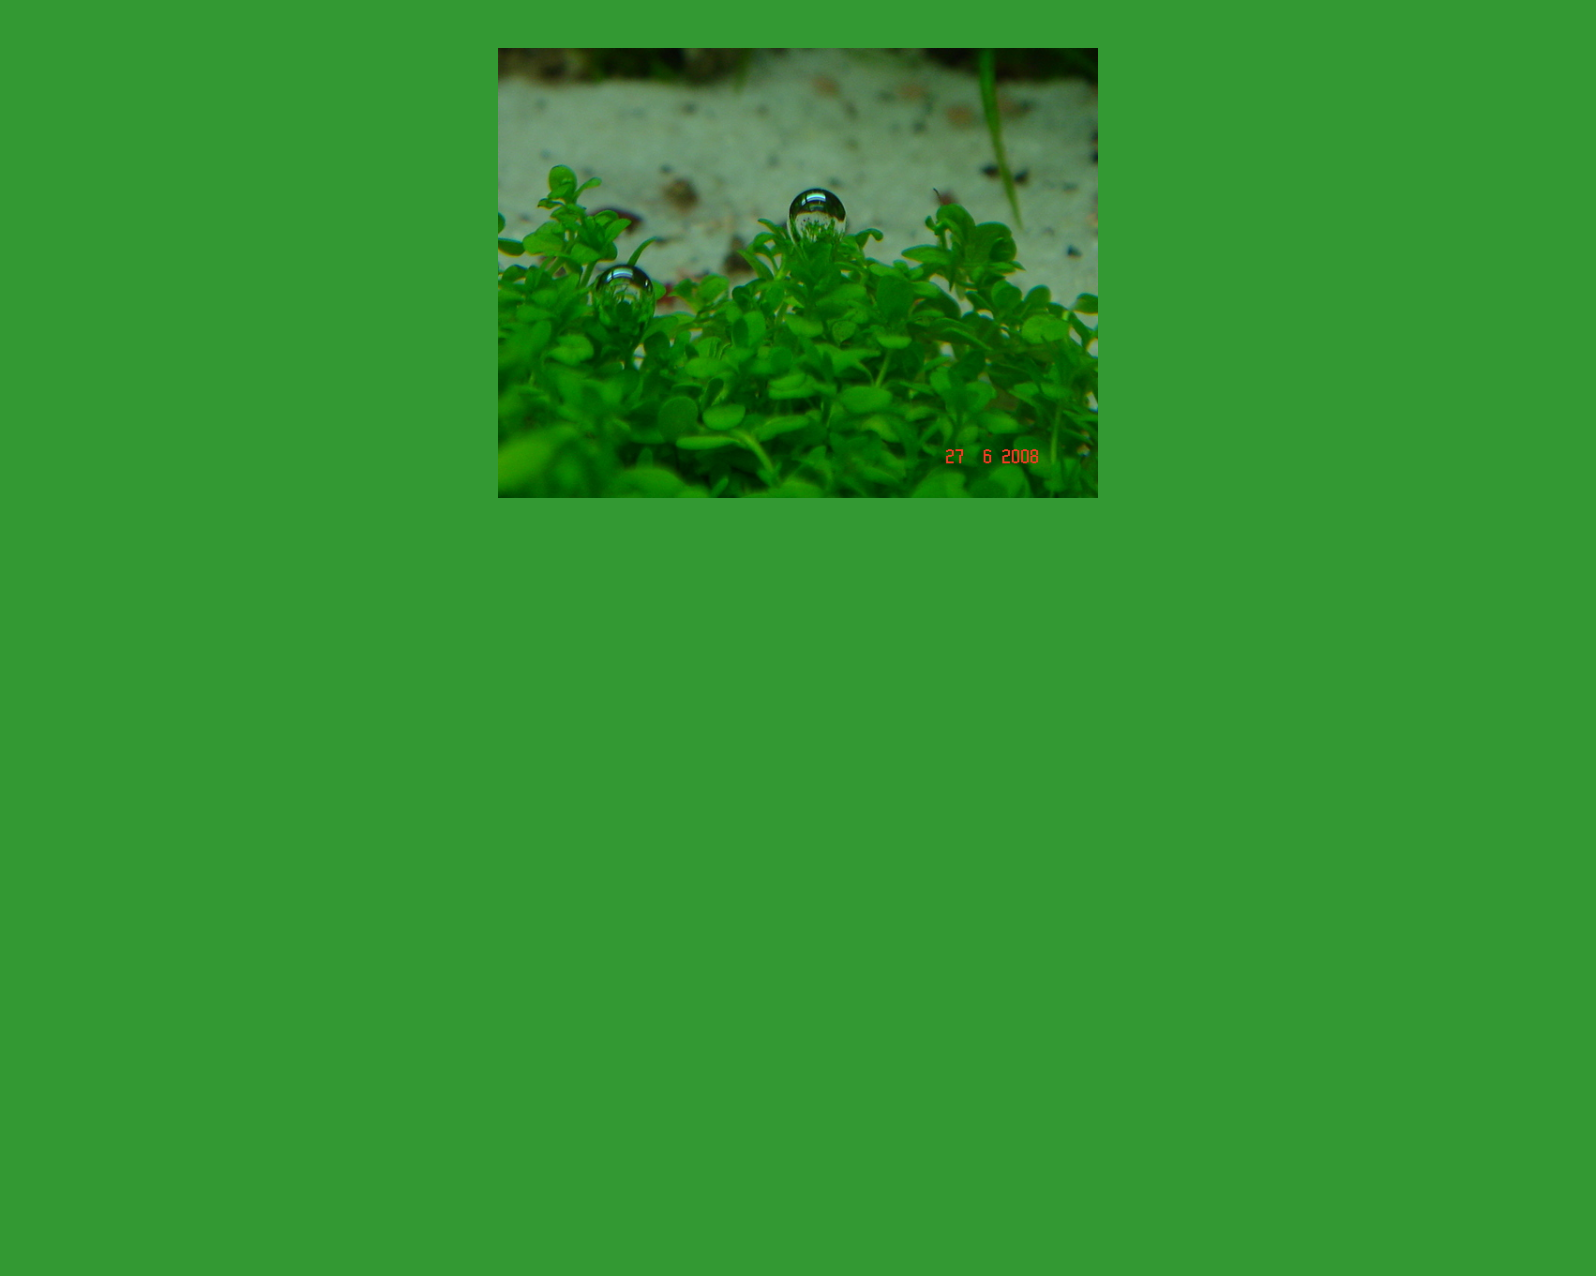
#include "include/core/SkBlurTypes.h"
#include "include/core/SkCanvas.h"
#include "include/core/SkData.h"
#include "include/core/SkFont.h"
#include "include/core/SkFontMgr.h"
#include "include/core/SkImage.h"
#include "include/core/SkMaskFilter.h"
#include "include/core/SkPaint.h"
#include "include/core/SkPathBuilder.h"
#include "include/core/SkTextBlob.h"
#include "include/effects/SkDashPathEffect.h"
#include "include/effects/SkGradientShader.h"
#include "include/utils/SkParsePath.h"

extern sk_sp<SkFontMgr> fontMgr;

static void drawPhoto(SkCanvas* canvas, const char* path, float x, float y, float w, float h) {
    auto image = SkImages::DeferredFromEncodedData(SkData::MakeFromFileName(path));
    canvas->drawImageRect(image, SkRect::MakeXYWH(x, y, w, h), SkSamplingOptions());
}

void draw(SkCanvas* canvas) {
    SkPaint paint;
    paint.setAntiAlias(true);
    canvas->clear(0xFF339933);
    drawPhoto(canvas, "assets/img1.png", 498, 48, 600, 450);
}
